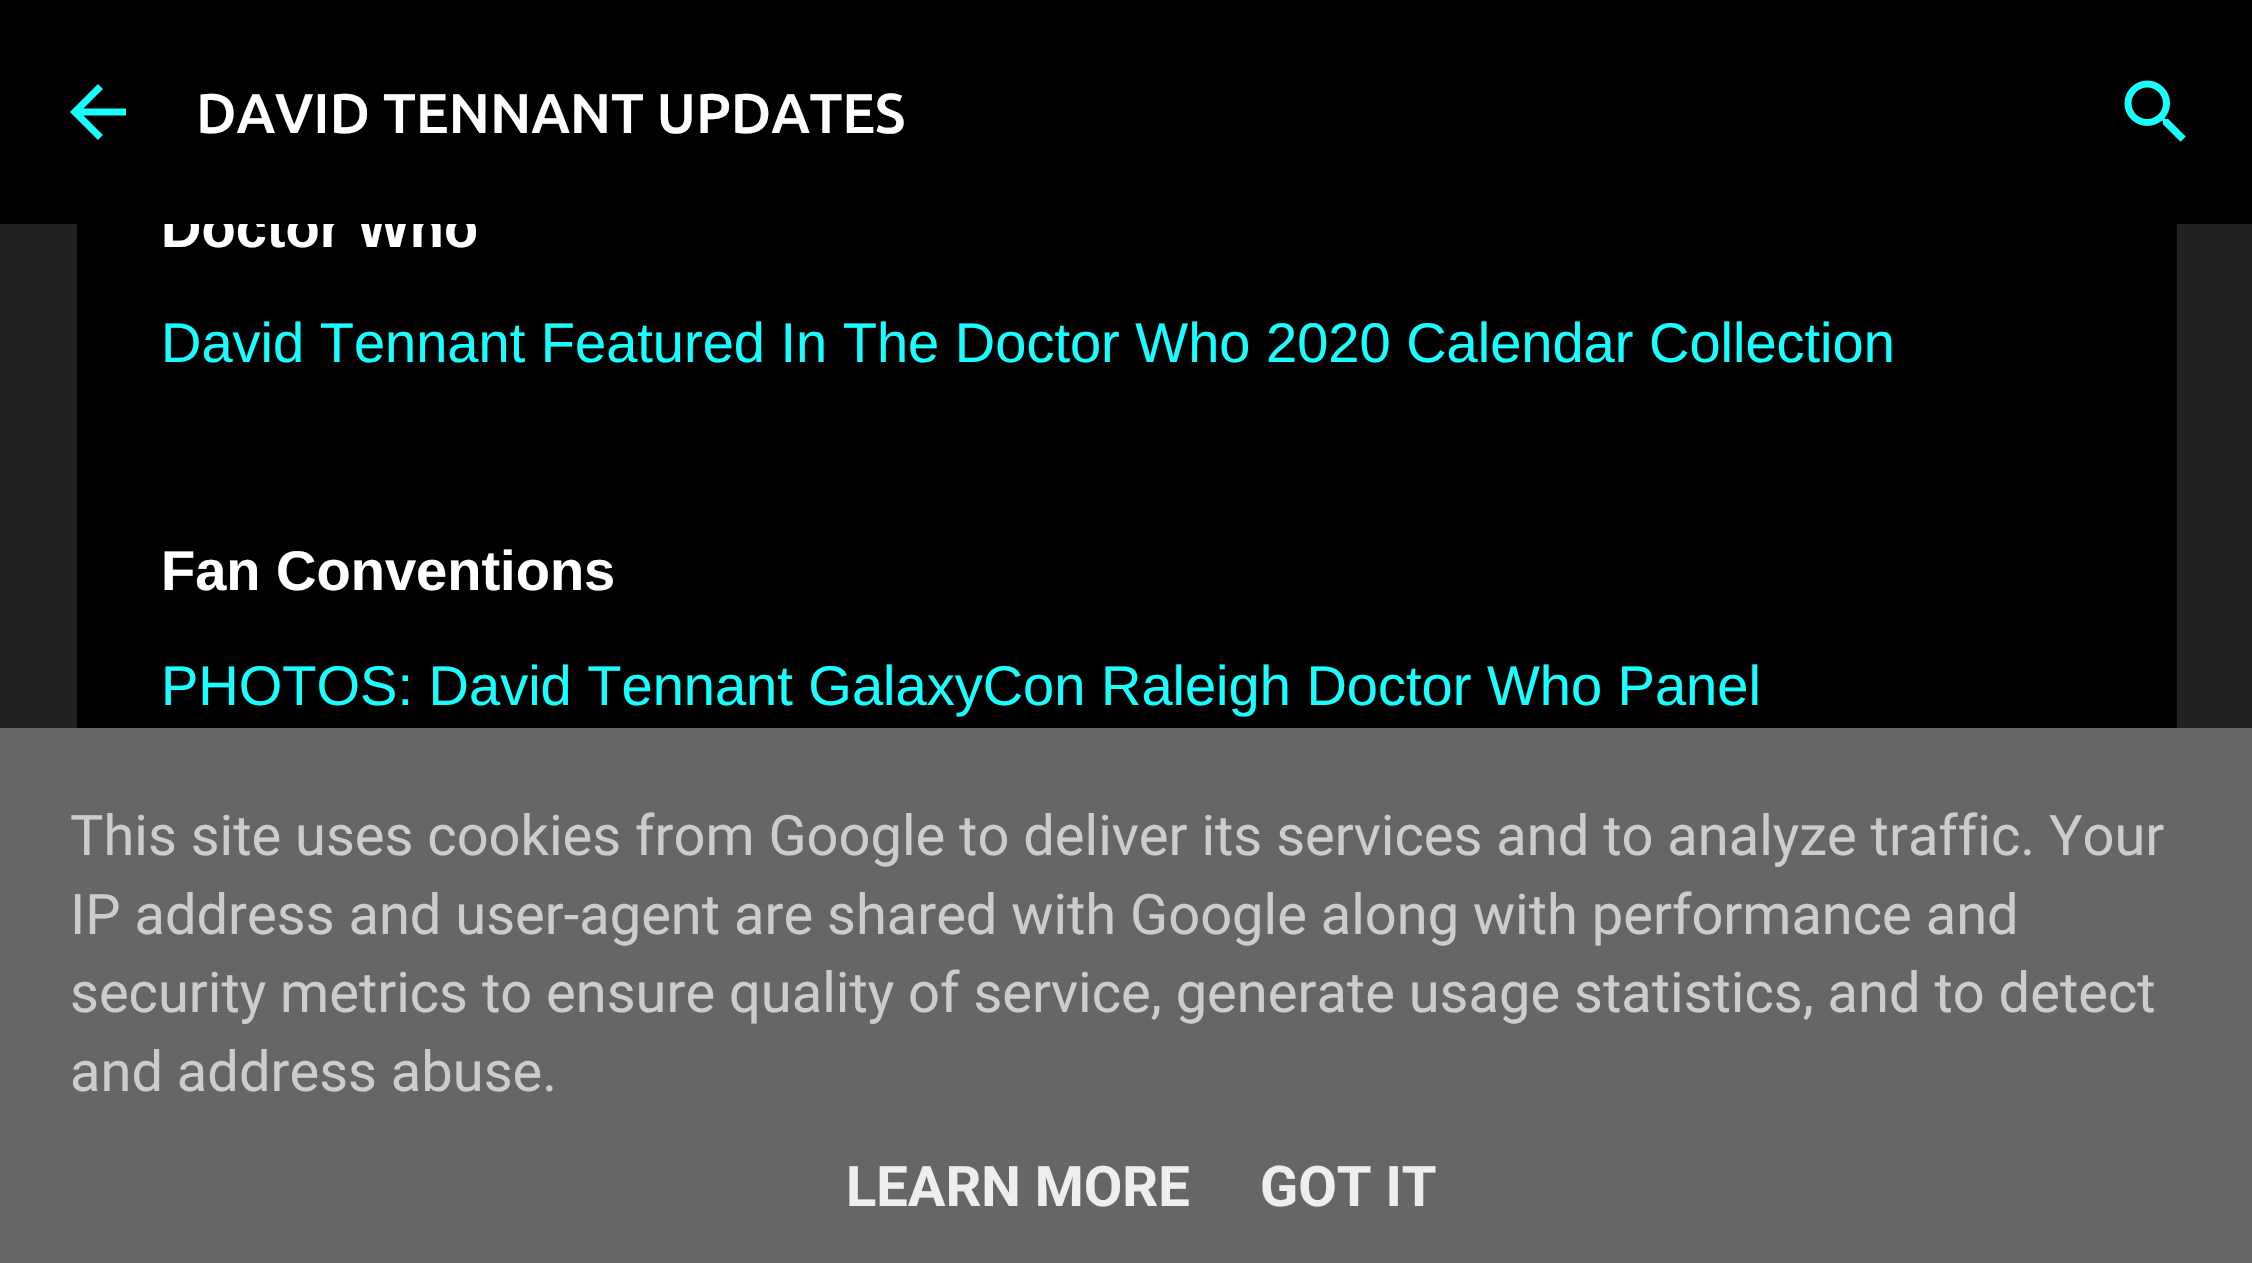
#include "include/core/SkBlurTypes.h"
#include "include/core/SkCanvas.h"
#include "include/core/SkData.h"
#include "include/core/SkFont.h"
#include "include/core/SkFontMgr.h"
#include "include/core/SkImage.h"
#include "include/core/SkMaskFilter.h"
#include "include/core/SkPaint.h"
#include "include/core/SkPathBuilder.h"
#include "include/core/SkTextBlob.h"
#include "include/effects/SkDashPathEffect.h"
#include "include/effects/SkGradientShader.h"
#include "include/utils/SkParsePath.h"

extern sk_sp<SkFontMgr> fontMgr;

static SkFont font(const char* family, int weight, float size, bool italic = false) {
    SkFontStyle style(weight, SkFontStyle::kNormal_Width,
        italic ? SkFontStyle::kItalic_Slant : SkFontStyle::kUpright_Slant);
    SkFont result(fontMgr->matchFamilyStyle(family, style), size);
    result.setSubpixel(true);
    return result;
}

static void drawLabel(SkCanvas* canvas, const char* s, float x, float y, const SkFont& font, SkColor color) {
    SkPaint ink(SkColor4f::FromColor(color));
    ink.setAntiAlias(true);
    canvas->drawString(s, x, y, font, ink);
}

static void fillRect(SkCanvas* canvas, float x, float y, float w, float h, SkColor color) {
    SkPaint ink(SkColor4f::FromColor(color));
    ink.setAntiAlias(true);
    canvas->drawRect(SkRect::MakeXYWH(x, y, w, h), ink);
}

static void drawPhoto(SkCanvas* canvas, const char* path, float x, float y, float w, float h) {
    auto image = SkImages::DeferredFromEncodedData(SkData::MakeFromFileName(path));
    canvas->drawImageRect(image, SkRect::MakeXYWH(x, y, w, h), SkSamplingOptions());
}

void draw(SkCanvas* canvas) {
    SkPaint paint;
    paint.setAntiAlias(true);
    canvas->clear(0xFF212121);
    fillRect(canvas, 77, 224, 2100, 504, 0xFF000000);
    SkFont font1 = font("Liberation Sans", 700, 56);
    drawLabel(canvas, "Doctor Who", 161, 247, font1, 0xFFFFFFFF);
    fillRect(canvas, 0, 0, 2252, 224, 0xFF000000);
    drawPhoto(canvas, "assets/img1.png", 70, 84, 56, 56);
    SkFont font2 = font("Ubuntu", 500, 56);
    drawLabel(canvas, "DAVID TENNANT UPDATES", 196, 133, font2, 0xFFFFFFFF);
    drawPhoto(canvas, "assets/img2.png", 2124, 80, 62, 62);
    SkFont font3 = font("Liberation Sans", 400, 56);
    drawLabel(canvas, "David Tennant Featured In The Doctor Who 2020 Calendar Collection", 161, 362, font3, 0xFF18FFFF);
    drawLabel(canvas, "Fan Conventions", 161, 590, font1, 0xFFFFFFFF);
    drawLabel(canvas, "PHOTOS: David Tennant GalaxyCon Raleigh Doctor Who Panel", 161, 705, font3, 0xFF18FFFF);
    fillRect(canvas, 0, 728, 2252, 535, 0xFF666666);
    SkFont font4 = font("Roboto", 400, 56);
    drawLabel(canvas, "This site uses cookies from Google to deliver its services and to analyze traffic. Your", 70, 855, font4, 0xFFCCCCCC);
    drawLabel(canvas, "IP address and user-agent are shared with Google along with performance and", 70, 934, font4, 0xFFCCCCCC);
    drawLabel(canvas, "security metrics to ensure quality of service, generate usage statistics, and to detect", 70, 1012, font4, 0xFFCCCCCC);
    drawLabel(canvas, "and address abuse.", 70, 1091, font4, 0xFFCCCCCC);
    SkFont font5 = font("Roboto", 700, 56);
    drawLabel(canvas, "LEARN MORE", 846, 1206, font5, 0xFFEEEEEE);
    drawLabel(canvas, "GOT IT", 1260, 1206, font5, 0xFFEEEEEE);
}
